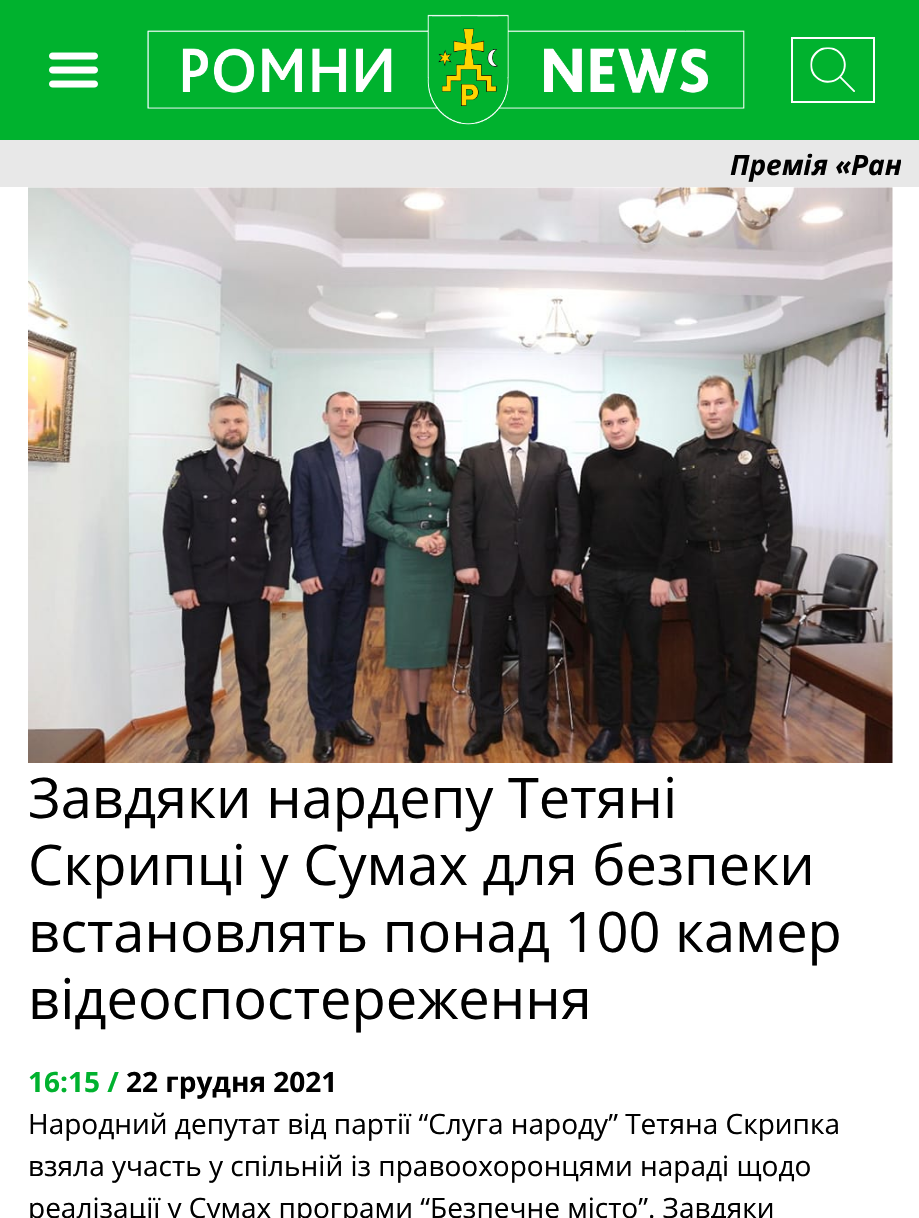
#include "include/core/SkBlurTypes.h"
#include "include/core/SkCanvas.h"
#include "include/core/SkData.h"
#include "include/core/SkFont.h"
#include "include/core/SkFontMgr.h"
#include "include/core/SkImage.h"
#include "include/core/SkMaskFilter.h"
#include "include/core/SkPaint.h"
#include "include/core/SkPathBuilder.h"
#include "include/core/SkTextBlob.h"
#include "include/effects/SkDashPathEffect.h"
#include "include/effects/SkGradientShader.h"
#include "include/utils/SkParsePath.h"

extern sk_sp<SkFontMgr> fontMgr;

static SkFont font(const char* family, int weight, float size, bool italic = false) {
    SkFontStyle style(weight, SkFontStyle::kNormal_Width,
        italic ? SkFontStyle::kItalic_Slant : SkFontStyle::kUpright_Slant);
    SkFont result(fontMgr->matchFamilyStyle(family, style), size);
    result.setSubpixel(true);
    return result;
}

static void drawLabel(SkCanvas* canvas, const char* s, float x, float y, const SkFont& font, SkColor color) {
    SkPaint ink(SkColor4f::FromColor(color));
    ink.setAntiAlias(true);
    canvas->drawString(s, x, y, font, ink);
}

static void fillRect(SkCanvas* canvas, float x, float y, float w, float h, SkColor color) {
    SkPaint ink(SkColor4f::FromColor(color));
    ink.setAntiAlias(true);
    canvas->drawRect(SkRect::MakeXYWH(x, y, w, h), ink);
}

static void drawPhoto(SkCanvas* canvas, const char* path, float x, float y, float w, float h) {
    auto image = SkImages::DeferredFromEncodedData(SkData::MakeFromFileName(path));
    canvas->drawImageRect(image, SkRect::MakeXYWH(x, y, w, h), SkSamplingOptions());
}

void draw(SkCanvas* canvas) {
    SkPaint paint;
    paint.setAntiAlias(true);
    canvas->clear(0xFFFFFFFF);
    fillRect(canvas, 0, 0, 919, 140, 0xFF00B22E);
    drawPhoto(canvas, "assets/img1.png", 49, 52, 49, 36);
    drawPhoto(canvas, "assets/img2.png", 147, 14, 598, 111);
    paint.setStroke(true);
    paint.setStrokeWidth(2);
    paint.setColor(0xFFFFFFFF);
    canvas->drawRect(SkRect::MakeXYWH(792, 38, 82, 64), paint);
    drawPhoto(canvas, "assets/img3.png", 810, 47, 45, 45);
    fillRect(canvas, 0, 140, 919, 47, 0xFFE8E8E8);
    canvas->save();
    canvas->clipRect(SkRect::MakeXYWH(0, 140, 901, 47));
    SkFont font1 = font("Open Sans", 700, 28, true);
    drawLabel(canvas, "Премія «Ран", 730, 175, font1, 0xFF000000);
    canvas->restore();
    drawPhoto(canvas, "assets/img4.png", 28, 187, 865, 576);
    SkFont font2 = font("Open Sans", 400, 56);
    drawLabel(canvas, "Завдяки нардепу Тетяні", 28, 818, font2, 0xFF000000);
    drawLabel(canvas, "Скрипці у Сумах для безпеки", 28, 885, font2, 0xFF000000);
    drawLabel(canvas, "встановлять понад 100 камер", 28, 952, font2, 0xFF000000);
    drawLabel(canvas, "відеоспостереження", 28, 1019, font2, 0xFF000000);
    SkFont font3 = font("Open Sans", 700, 28);
    drawLabel(canvas, "16:15 /", 28, 1092, font3, 0xFF00B22E);
    drawLabel(canvas, "22 грудня 2021", 126, 1092, font3, 0xFF000000);
    SkFont font4 = font("Open Sans", 400, 28);
    drawLabel(canvas, "Народний депутат від партії “Слуга народу” Тетяна Скрипка", 28, 1134, font4, 0xFF000000);
    drawLabel(canvas, "взяла участь у спільній із правоохоронцями нараді щодо", 28, 1176, font4, 0xFF000000);
    drawLabel(canvas, "реалізації у Сумах програми “Безпечне місто”. Завдяки", 28, 1218, font4, 0xFF000000);
}
